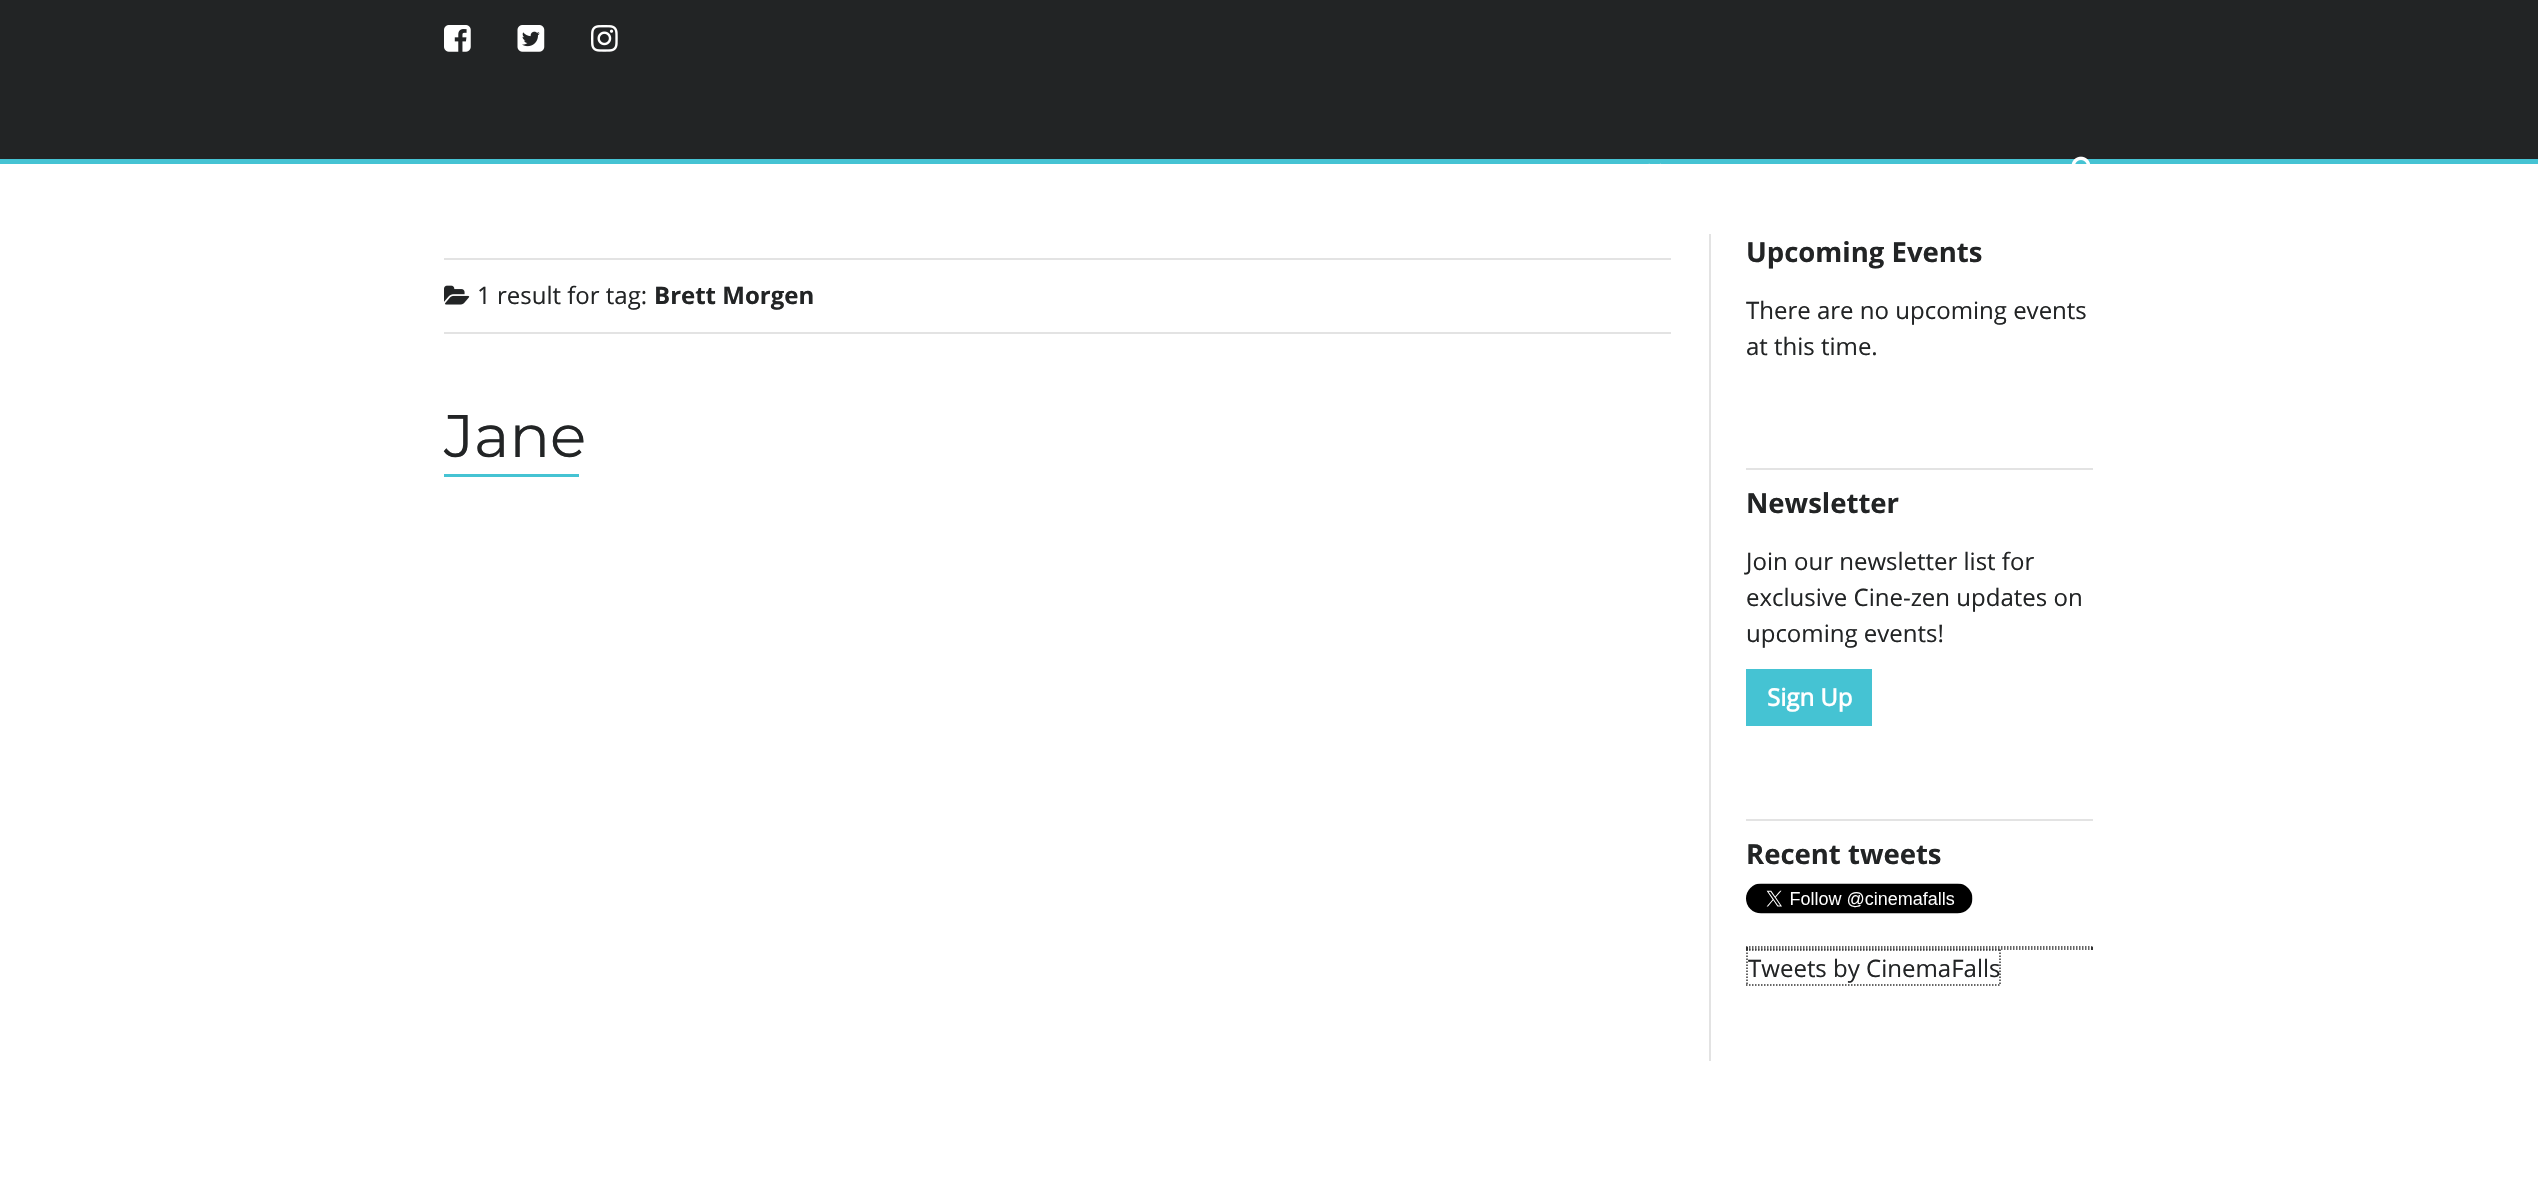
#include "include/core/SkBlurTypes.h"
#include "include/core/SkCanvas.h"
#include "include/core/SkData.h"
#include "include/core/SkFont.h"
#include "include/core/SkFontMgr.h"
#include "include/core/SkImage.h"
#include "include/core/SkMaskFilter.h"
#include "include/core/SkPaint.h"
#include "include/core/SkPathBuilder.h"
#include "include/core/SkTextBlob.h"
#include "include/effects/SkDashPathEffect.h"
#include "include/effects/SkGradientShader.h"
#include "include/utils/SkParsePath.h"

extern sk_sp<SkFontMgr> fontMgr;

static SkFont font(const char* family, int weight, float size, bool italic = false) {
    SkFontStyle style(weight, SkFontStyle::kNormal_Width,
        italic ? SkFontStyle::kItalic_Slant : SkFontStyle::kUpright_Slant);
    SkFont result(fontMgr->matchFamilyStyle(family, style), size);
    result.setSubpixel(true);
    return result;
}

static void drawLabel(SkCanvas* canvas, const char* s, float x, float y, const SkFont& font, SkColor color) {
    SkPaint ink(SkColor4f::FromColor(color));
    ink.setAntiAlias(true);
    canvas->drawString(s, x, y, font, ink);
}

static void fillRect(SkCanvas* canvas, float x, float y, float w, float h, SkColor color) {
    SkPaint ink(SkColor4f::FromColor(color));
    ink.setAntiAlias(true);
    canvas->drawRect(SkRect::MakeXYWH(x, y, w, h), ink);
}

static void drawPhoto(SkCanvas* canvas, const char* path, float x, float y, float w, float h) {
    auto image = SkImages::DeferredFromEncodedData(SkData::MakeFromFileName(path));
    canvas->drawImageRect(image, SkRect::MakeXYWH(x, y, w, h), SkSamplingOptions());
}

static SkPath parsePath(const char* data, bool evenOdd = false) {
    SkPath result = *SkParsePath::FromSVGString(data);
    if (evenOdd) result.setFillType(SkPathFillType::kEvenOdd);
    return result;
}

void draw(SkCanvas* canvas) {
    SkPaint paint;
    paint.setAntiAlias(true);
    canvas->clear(0xFFFFFFFF);
    fillRect(canvas, 0, 0, 2538, 159, 0xFF222425);
    drawPhoto(canvas, "assets/img1.png", 444, 25, 27, 27);
    drawPhoto(canvas, "assets/img2.png", 517, 25, 28, 27);
    drawPhoto(canvas, "assets/img3.png", 591, 25, 27, 27);
    fillRect(canvas, 0, 159, 2538, 5, 0xFF45C3D3);
    drawPhoto(canvas, "assets/img4.png", 1648, 163, 13, 1);
    drawPhoto(canvas, "assets/img5.png", 2071, 156, 19, 8);
    fillRect(canvas, 444, 258, 1227, 2, 0xFFE3E3E3);
    fillRect(canvas, 444, 332, 1227, 2, 0xFFE3E3E3);
    drawPhoto(canvas, "assets/img6.png", 444, 285, 26, 20);
    SkFont font1 = font("Open Sans", 400, 24);
    drawLabel(canvas, "1 result for tag:", 477, 304, font1, 0xFF222425);
    SkFont font2 = font("Open Sans", 700, 24);
    drawLabel(canvas, "Brett Morgen", 654, 304, font2, 0xFF222425);
    SkFont font3 = font("Montserrat", 100, 60);
    drawLabel(canvas, "Jane", 444, 457, font3, 0xFF222425);
    fillRect(canvas, 444, 474, 135, 3, 0xFF45C3D3);
    fillRect(canvas, 1709, 234, 2, 827, 0xFFE3E3E3);
    SkFont font4 = font("Open Sans", 700, 27.5f);
    drawLabel(canvas, "Upcoming Events", 1746, 262, font4, 0xFF222425);
    drawLabel(canvas, "There are no upcoming events", 1746, 319, font1, 0xFF222425);
    drawLabel(canvas, "at this time.", 1746, 355, font1, 0xFF222425);
    fillRect(canvas, 1746, 468, 347, 2, 0xFFE3E3E3);
    drawLabel(canvas, "Newsletter", 1746, 513, font4, 0xFF222425);
    drawLabel(canvas, "Join our newsletter list for", 1746, 570, font1, 0xFF222425);
    drawLabel(canvas, "exclusive Cine-zen updates on", 1746, 606, font1, 0xFF222425);
    drawLabel(canvas, "upcoming events!", 1746, 642, font1, 0xFF222425);
    fillRect(canvas, 1746, 669, 126, 57, 0xFF45C3D3);
    SkFont font5 = font("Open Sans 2", 700, 24);
    drawLabel(canvas, "Sign Up", 1767, 706, font5, 0xFFFFFFFF);
    fillRect(canvas, 1746, 819, 347, 2, 0xFFE3E3E3);
    drawLabel(canvas, "Recent tweets", 1746, 864, font4, 0xFF222425);
    drawPhoto(canvas, "assets/img7.png", 1746, 883, 227, 31);
    paint.setStroke(true);
    paint.setStrokeWidth(1.5f);
    paint.setColor(0xFF333333);
    paint.setPathEffect(SkDashPathEffect::Make({{1.5f, 1.5f}}, 0));
    canvas->drawPath(parsePath("M1746 947H2092.5"), paint);
    paint.setPathEffect(nullptr);
    fillRect(canvas, 2091, 947, 2, 3, 0xFF333333);
    paint.setPathEffect(SkDashPathEffect::Make({{1.5f, 1.5f}}, 0));
    canvas->drawPath(parsePath("M1746 949H2092.5"), paint);
    paint.setPathEffect(nullptr);
    fillRect(canvas, 1746, 947, 2, 3, 0xFF333333);
    paint.setPathEffect(SkDashPathEffect::Make({{1.5f, 1.5f}}, 0));
    canvas->drawPath(parsePath("M1746 950H2001"), paint);
    paint.setPathEffect(nullptr);
    paint.setPathEffect(SkDashPathEffect::Make({{1.5f, 1.5f}}, 0));
    canvas->drawPath(parsePath("M2000 949.5V985.5"), paint);
    paint.setPathEffect(nullptr);
    paint.setPathEffect(SkDashPathEffect::Make({{1.5f, 1.5f}}, 0));
    canvas->drawPath(parsePath("M1747 949.5V985.5"), paint);
    paint.setPathEffect(nullptr);
    drawLabel(canvas, "Tweets by CinemaFalls", 1748, 977, font1, 0xFF222425);
    paint.setPathEffect(SkDashPathEffect::Make({{1.5f, 1.5f}}, 0));
    canvas->drawPath(parsePath("M1746 985H2001"), paint);
    paint.setPathEffect(nullptr);
}
